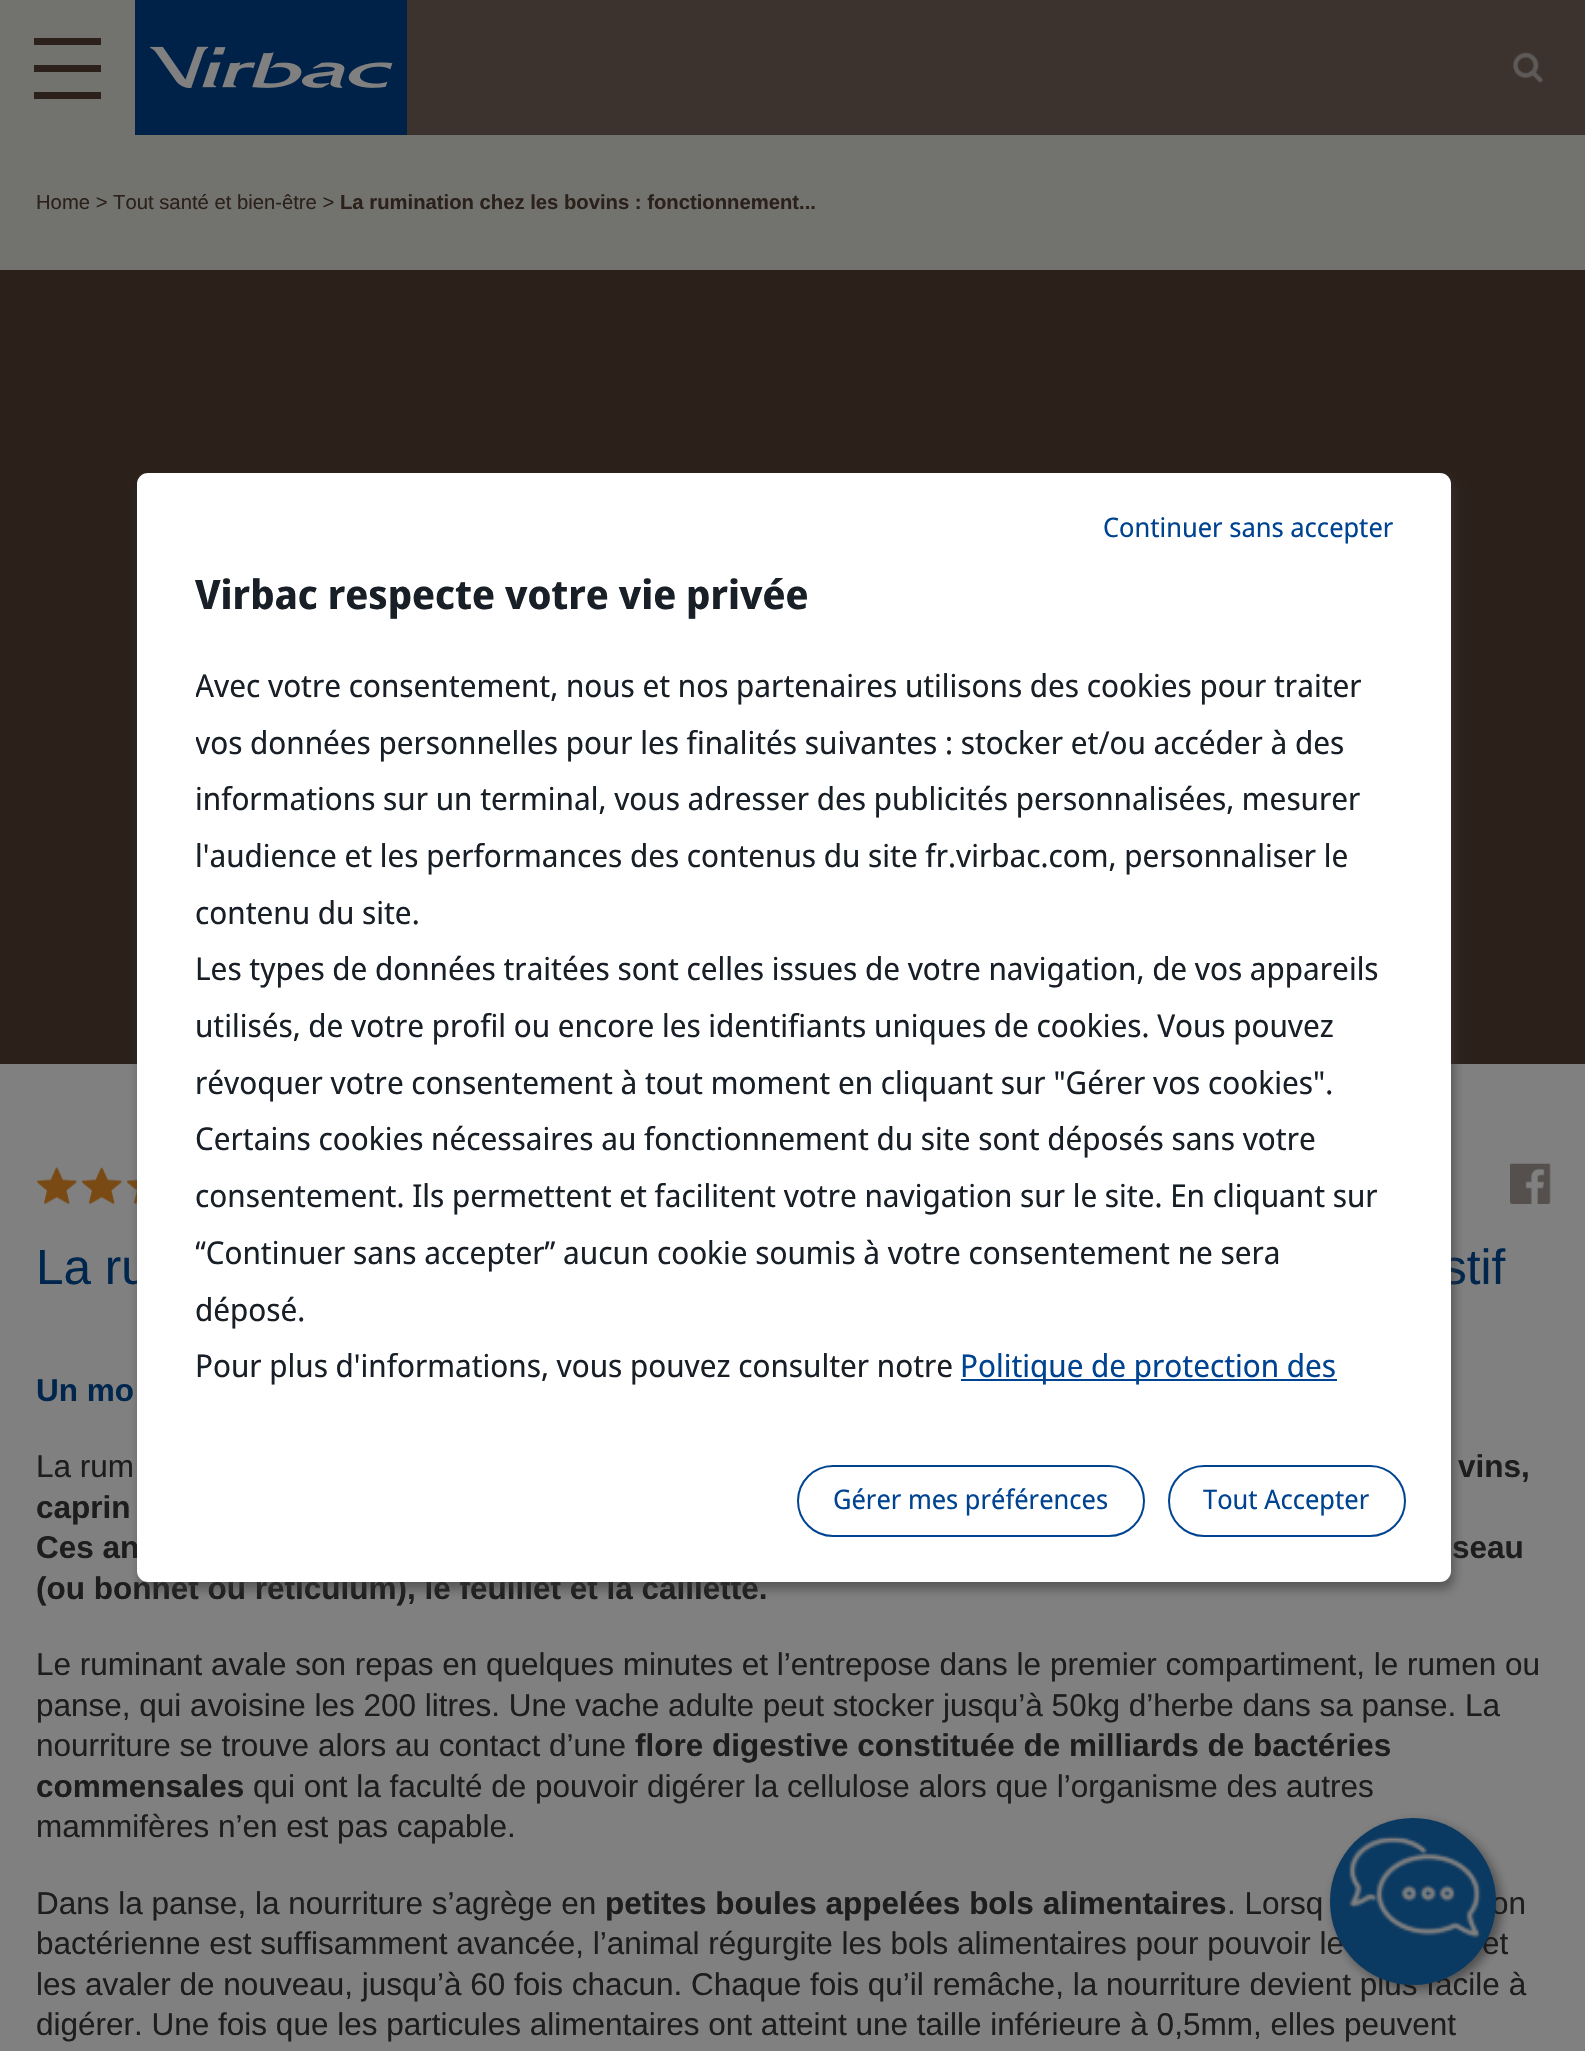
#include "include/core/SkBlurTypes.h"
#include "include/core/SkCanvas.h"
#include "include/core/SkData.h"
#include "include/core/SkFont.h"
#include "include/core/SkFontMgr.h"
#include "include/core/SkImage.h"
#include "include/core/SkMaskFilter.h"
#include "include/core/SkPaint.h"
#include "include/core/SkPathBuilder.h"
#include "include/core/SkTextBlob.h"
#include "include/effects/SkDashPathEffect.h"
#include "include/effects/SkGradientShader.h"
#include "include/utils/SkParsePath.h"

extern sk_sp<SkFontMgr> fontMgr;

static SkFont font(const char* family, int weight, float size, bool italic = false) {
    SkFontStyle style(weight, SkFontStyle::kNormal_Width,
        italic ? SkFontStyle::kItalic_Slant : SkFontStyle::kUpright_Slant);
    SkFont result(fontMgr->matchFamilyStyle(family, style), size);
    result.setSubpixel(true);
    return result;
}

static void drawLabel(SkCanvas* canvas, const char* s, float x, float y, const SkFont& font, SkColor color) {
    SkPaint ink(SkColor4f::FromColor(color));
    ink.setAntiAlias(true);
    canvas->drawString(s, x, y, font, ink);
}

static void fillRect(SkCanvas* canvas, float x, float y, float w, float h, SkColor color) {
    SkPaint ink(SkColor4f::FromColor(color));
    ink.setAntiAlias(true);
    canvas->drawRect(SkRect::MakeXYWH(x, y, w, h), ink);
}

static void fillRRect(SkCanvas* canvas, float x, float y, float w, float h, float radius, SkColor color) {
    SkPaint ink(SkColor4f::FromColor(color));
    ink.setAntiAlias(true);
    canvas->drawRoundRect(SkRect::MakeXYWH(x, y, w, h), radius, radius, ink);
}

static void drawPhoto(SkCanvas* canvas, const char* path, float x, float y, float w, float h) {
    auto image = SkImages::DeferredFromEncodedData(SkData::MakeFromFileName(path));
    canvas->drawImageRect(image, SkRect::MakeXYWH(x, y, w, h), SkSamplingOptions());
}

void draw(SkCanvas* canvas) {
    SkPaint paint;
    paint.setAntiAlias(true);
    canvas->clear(0xFF808080);
    fillRect(canvas, 0, 0, 135, 135, 0xFF72726E);
    fillRect(canvas, 34, 65, 67, 7, 0xFF2B201A);
    fillRect(canvas, 34, 38, 67, 7, 0xFF2B201A);
    fillRect(canvas, 34, 92, 67, 7, 0xFF2B201A);
    drawPhoto(canvas, "assets/img1.png", 135, 0, 272, 135);
    fillRect(canvas, 407, 0, 1178, 135, 0xFF3C332F);
    drawPhoto(canvas, "assets/img2.png", 1512, 52, 32, 31);
    fillRect(canvas, 0, 135, 1585, 135, 0xFF72726E);
    SkFont font1 = font("Liberation Sans", 400, 20.25f);
    drawLabel(canvas, "Home > Tout santé et bien-être >", 36, 209, font1, 0xFF2B201A);
    SkFont font2 = font("Liberation Sans", 700, 20.25f);
    drawLabel(canvas, "La rumination chez les bovins : fonctionnement...", 340, 209, font2, 0xFF2B201A);
    fillRect(canvas, 0, 270, 1585, 794, 0xFF2B201A);
    drawPhoto(canvas, "assets/img3.png", 37, 1167, 100, 37);
    drawPhoto(canvas, "assets/img4.png", 1510, 1163, 41, 41);
    SkFont font3 = font("Liberation Sans", 400, 49.5f);
    drawLabel(canvas, "La ru", 36, 1284, font3, 0xFF00264D);
    drawLabel(canvas, "stif", 1442, 1284, font3, 0xFF00264D);
    SkFont font4 = font("Liberation Sans", 700, 31.5f);
    drawLabel(canvas, "Un mo", 36, 1401, font4, 0xFF00264D);
    SkFont font5 = font("Liberation Sans", 400, 31.5f);
    drawLabel(canvas, "La rum", 36, 1477, font5, 0xFF1D1D1D);
    drawLabel(canvas, "vins,", 1458, 1477, font4, 0xFF1D1D1D);
    drawLabel(canvas, "caprin", 36, 1518, font4, 0xFF1D1D1D);
    drawLabel(canvas, "Ces an", 36, 1558, font4, 0xFF1D1D1D);
    drawLabel(canvas, "seau", 1452, 1558, font4, 0xFF1D1D1D);
    drawLabel(canvas, "(ou bonnet ou réticulum), le feuillet et la caillette.", 36, 1599, font4, 0xFF1D1D1D);
    drawLabel(canvas, "Le ruminant avale son repas en quelques minutes et l’entrepose dans le premier compartiment, le rumen ou", 36, 1675, font5, 0xFF1D1D1D);
    drawLabel(canvas, "panse, qui avoisine les 200 litres. Une vache adulte peut stocker jusqu’à 50kg d’herbe dans sa panse. La", 36, 1716, font5, 0xFF1D1D1D);
    drawLabel(canvas, "nourriture se trouve alors au contact d’une", 36, 1756, font5, 0xFF1D1D1D);
    drawLabel(canvas, "flore digestive constituée de milliards de bactéries", 635, 1756, font4, 0xFF1D1D1D);
    drawLabel(canvas, "commensales", 36, 1797, font4, 0xFF1D1D1D);
    drawLabel(canvas, "qui ont la faculté de pouvoir digérer la cellulose alors que l’organisme des autres", 253, 1797, font5, 0xFF1D1D1D);
    drawLabel(canvas, "mammifères n’en est pas capable.", 36, 1837, font5, 0xFF1D1D1D);
    drawLabel(canvas, "Dans la panse, la nourriture s’agrège en", 36, 1914, font5, 0xFF1D1D1D);
    drawLabel(canvas, "petites boules appelées bols alimentaires", 605, 1914, font4, 0xFF1D1D1D);
    drawLabel(canvas, ". Lorsq", 1227, 1914, font5, 0xFF1D1D1D);
    drawLabel(canvas, "on", 1491, 1914, font5, 0xFF1D1D1D);
    drawLabel(canvas, "bactérienne est suffisamment avancée, l’animal régurgite les bols alimentaires pour pouvoir le", 36, 1954, font5, 0xFF1D1D1D);
    drawLabel(canvas, "et", 1482, 1954, font5, 0xFF1D1D1D);
    drawLabel(canvas, "les avaler de nouveau, jusqu’à 60 fois chacun. Chaque fois qu’il remâche, la nourriture devient plus facile à", 36, 1995, font5, 0xFF1D1D1D);
    drawLabel(canvas, "digérer. Une fois que les particules alimentaires ont atteint une taille inférieure à 0,5mm, elles peuvent", 36, 2035, font5, 0xFF1D1D1D);
    paint.setColor(0x80171717);
    paint.setMaskFilter(SkMaskFilter::MakeBlur(kNormal_SkBlurStyle, 5.5f));
    canvas->drawRoundRect(SkRect::MakeXYWH(1334, 1823, 167, 166), 83, 83, paint);
    paint.setMaskFilter(nullptr);
    fillRRect(canvas, 1330, 1818, 166, 167, 83, 0xFF0A3962);
    drawPhoto(canvas, "assets/img5.png", 1348, 1835, 134, 103);
    paint.setColor(0x99383838);
    paint.setMaskFilter(SkMaskFilter::MakeBlur(kNormal_SkBlurStyle, 5.5f));
    canvas->drawRoundRect(SkRect::MakeXYWH(140, 479, 1314, 1110), 11, 11, paint);
    paint.setMaskFilter(nullptr);
    fillRRect(canvas, 137, 473, 1314, 1109, 11, 0xFFFFFFFF);
    SkFont font6 = font("Noto Sans Display", 400, 27);
    drawLabel(canvas, "Continuer sans accepter", 1103, 537, font6, 0xFF004491);
    paint.setStroke(true);
    paint.setStrokeWidth(2);
    paint.setColor(0xFF004491);
    canvas->drawRoundRect(SkRect::MakeXYWH(798, 1466, 346, 70), 35, 35, paint);
    drawLabel(canvas, "Gérer mes préférences", 833, 1509, font6, 0xFF004491);
    canvas->drawRoundRect(SkRect::MakeXYWH(1169, 1466, 236, 70), 35, 35, paint);
    drawLabel(canvas, "Tout Accepter", 1203, 1509, font6, 0xFF004491);
    SkFont font7 = font("Noto Sans Display", 700, 40.5f);
    drawLabel(canvas, "Virbac respecte votre vie privée", 195, 609, font7, 0xFF191F27);
    canvas->save();
    canvas->clipRect(SkRect::MakeXYWH(196, 657, 1197, 765));
    SkFont font8 = font("Noto Sans Display", 400, 31.5f);
    drawLabel(canvas, "Avec votre consentement, nous et nos partenaires utilisons des cookies pour traiter", 195, 697, font8, 0xFF191F27);
    drawLabel(canvas, "vos données personnelles pour les finalités suivantes : stocker et/ou accéder à des", 195, 754, font8, 0xFF191F27);
    canvas->restore();
    drawLabel(canvas, "informations sur un terminal, vous adresser des publicités personnalisées, mesurer", 195, 810, font8, 0xFF191F27);
    drawLabel(canvas, "l'audience et les performances des contenus du site fr.virbac.com, personnaliser le", 195, 867, font8, 0xFF191F27);
    drawLabel(canvas, "contenu du site.", 195, 924, font8, 0xFF191F27);
    drawLabel(canvas, "Les types de données traitées sont celles issues de votre navigation, de vos appareils", 195, 980, font8, 0xFF191F27);
    drawLabel(canvas, "utilisés, de votre profil ou encore les identifiants uniques de cookies. Vous pouvez", 195, 1037, font8, 0xFF191F27);
    drawLabel(canvas, "révoquer votre consentement à tout moment en cliquant sur \"Gérer vos cookies\".", 195, 1094, font8, 0xFF191F27);
    drawLabel(canvas, "Certains cookies nécessaires au fonctionnement du site sont déposés sans votre", 195, 1150, font8, 0xFF191F27);
    drawLabel(canvas, "consentement. Ils permettent et facilitent votre navigation sur le site. En cliquant sur", 195, 1207, font8, 0xFF191F27);
    canvas->save();
    canvas->clipRect(SkRect::MakeXYWH(196, 657, 1197, 765));
    drawLabel(canvas, "“Continuer sans accepter” aucun cookie soumis à votre consentement ne sera", 195, 1264, font8, 0xFF191F27);
    canvas->restore();
    drawLabel(canvas, "déposé.", 195, 1321, font8, 0xFF191F27);
    drawLabel(canvas, "Pour plus d'informations, vous pouvez consulter notre", 195, 1377, font8, 0xFF191F27);
    fillRect(canvas, 961, 1379, 376, 2, 0xFF004491);
    drawLabel(canvas, "Politique de protection des", 960, 1377, font8, 0xFF004491);
}
